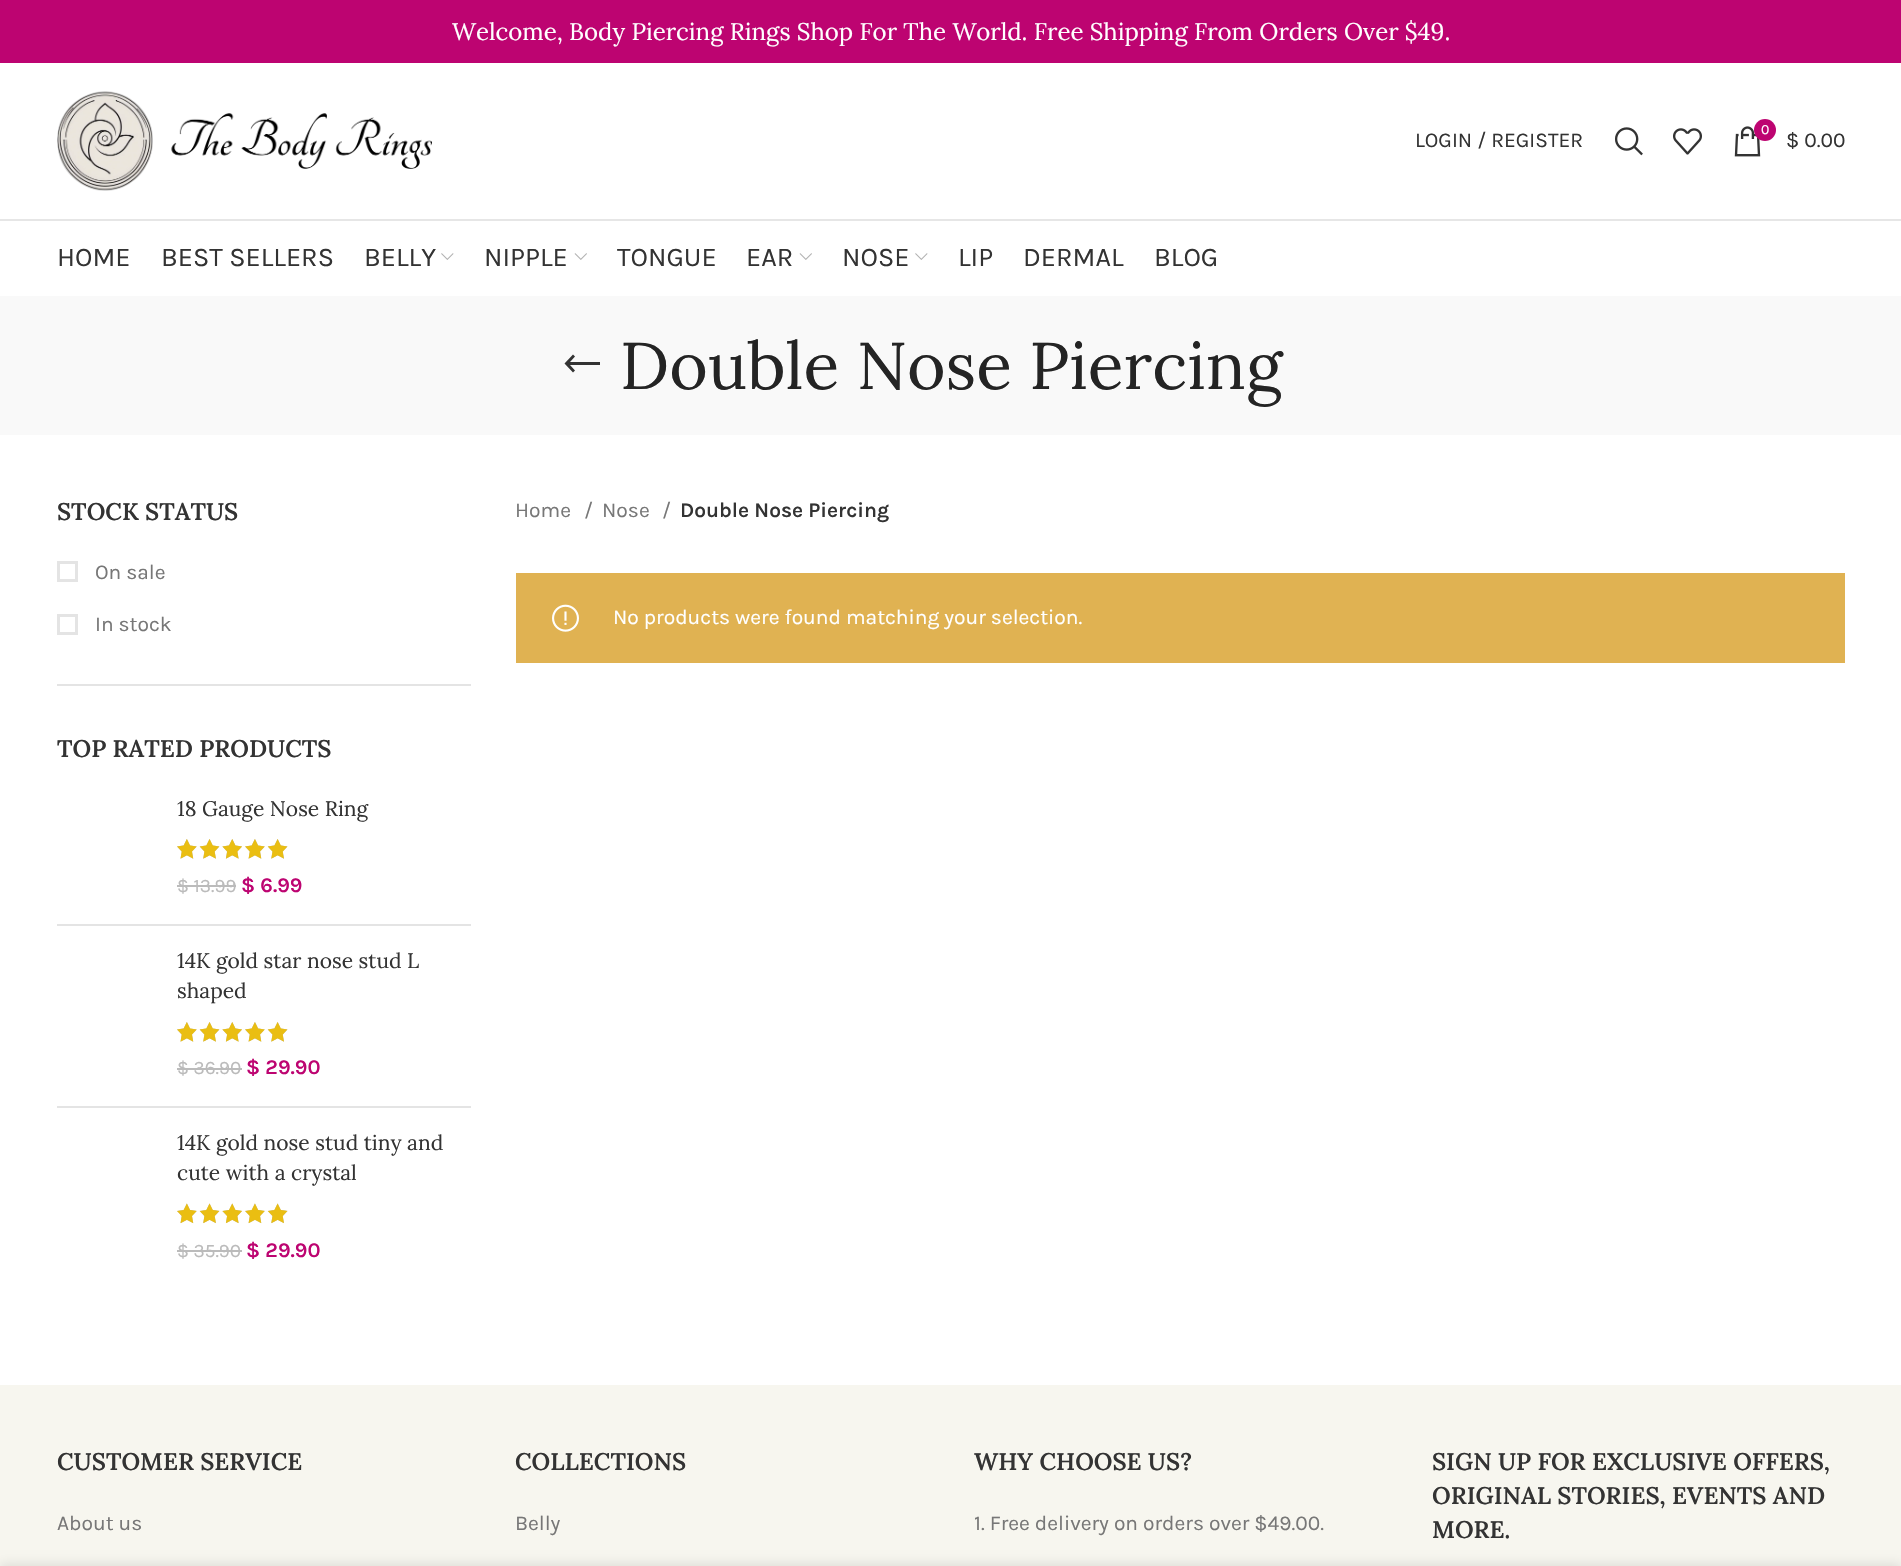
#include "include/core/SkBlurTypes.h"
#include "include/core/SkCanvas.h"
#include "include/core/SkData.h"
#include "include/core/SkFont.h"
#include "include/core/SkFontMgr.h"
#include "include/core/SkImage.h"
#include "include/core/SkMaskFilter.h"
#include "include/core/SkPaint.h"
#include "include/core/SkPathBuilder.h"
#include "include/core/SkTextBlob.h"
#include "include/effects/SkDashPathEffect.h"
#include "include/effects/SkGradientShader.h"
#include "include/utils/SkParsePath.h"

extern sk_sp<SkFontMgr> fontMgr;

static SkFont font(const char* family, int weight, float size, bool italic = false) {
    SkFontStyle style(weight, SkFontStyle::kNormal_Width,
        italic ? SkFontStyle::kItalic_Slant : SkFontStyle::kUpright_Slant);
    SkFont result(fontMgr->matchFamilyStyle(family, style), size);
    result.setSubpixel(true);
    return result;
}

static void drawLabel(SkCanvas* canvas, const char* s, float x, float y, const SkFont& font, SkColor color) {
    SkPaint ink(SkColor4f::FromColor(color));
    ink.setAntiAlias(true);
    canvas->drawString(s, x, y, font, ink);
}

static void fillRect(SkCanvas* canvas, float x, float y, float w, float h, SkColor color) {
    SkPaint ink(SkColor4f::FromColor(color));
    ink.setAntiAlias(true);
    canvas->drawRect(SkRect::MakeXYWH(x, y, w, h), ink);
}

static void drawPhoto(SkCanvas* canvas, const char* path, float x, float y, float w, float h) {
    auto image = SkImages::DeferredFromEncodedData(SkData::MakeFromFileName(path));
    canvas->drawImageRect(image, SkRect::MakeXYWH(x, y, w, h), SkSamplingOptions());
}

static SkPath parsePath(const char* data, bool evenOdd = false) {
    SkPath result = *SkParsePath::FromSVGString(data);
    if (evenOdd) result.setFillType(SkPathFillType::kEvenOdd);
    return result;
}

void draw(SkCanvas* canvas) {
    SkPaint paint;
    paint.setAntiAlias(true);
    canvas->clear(0xFFFFFFFF);
    fillRect(canvas, 0, 0, 1901, 63, 0xFFBD0471);
    SkFont font1 = font("Lora", 400, 24);
    drawLabel(canvas, "Welcome, Body Piercing Rings Shop For The World. Free Shipping From Orders Over $49.", 452, 40, font1, 0xFFFFFFFF);
    fillRect(canvas, 0, 219, 1901, 2, 0xFFE6E6E6);
    drawPhoto(canvas, "assets/img1.png", 57, 91, 375, 100);
    SkFont font2 = font("Karla", 400, 21);
    drawLabel(canvas, "LOGIN / REGISTER", 1415, 147, font2, 0xFF333333);
    drawPhoto(canvas, "assets/img2.png", 1615, 127, 28, 29);
    drawPhoto(canvas, "assets/img3.png", 1673, 128, 29, 27);
    drawPhoto(canvas, "assets/img4.png", 1734, 126, 27, 31);
    paint.setColor(0xFFBD0471);
    canvas->drawCircle(1765, 130, 11, paint);
    SkFont font3 = font("Karla", 400, 14);
    drawLabel(canvas, "0", 1761, 134, font3, 0xFFFFFFFF);
    drawLabel(canvas, "$ 0.00", 1786, 147, font2, 0xFF333333);
    SkFont font4 = font("Karla", 400, 27);
    drawLabel(canvas, "HOME", 57, 266, font4, 0xFF333333);
    drawLabel(canvas, "BEST SELLERS", 161, 266, font4, 0xFF333333);
    drawLabel(canvas, "BELLY", 364, 266, font4, 0xFF333333);
    drawPhoto(canvas, "assets/img5.png", 441, 253, 13, 7);
    drawLabel(canvas, "NIPPLE", 484, 266, font4, 0xFF333333);
    drawPhoto(canvas, "assets/img6.png", 574, 253, 13, 7);
    drawLabel(canvas, "TONGUE", 617, 266, font4, 0xFF333333);
    drawLabel(canvas, "EAR", 746, 266, font4, 0xFF333333);
    drawPhoto(canvas, "assets/img6.png", 799, 253, 13, 7);
    drawLabel(canvas, "NOSE", 842, 266, font4, 0xFF333333);
    drawPhoto(canvas, "assets/img5.png", 915, 253, 13, 7);
    drawLabel(canvas, "LIP", 958, 266, font4, 0xFF333333);
    drawLabel(canvas, "DERMAL", 1023, 266, font4, 0xFF333333);
    drawLabel(canvas, "BLOG", 1154, 266, font4, 0xFF333333);
    fillRect(canvas, 0, 296, 1901, 139, 0xFFF9F9F9);
    paint.setColor(0xFF333333);
    canvas->drawPath(parsePath("M575 370.5L570 365H600V362H570L575 356.5L573 354.5L564.5 363.5L573 372.5Z"), paint);
    SkFont font5 = font("Lora", 400, 66);
    drawLabel(canvas, "Double Nose Piercing", 620, 389, font5, 0xFF242424);
    fillRect(canvas, 57, 684, 414, 2, 0xFFE4E4E4);
    SkFont font6 = font("Lora", 600, 24);
    drawLabel(canvas, "STOCK STATUS", 57, 520, font6, 0xFF333333);
    paint.setStroke(true);
    paint.setStrokeWidth(3);
    paint.setColor(0xFFE4E4E4);
    canvas->drawRect(SkRect::MakeXYWH(58.5f, 562.5f, 18, 18), paint);
    drawLabel(canvas, "On sale", 95, 579, font2, 0xFF777777);
    canvas->drawRect(SkRect::MakeXYWH(58.5f, 615.5f, 18, 18), paint);
    drawLabel(canvas, "In stock", 95, 631, font2, 0xFF777777);
    drawLabel(canvas, "TOP RATED PRODUCTS", 57, 757, font6, 0xFF333333);
    fillRect(canvas, 57, 924, 414, 2, 0xFFE4E4E4);
    SkFont font7 = font("Lora", 400, 21);
    drawLabel(canvas, "18 Gauge Nose Ring", 177, 816, font7, 0xFF333333);
    drawPhoto(canvas, "assets/img7.png", 177, 839, 111, 20);
    drawPhoto(canvas, "assets/img8.png", 177, 839, 111, 20);
    SkFont font8 = font("Karla", 400, 19);
    drawLabel(canvas, "$ 13.99", 177, 892, font8, 0xFFBBBBBB);
    fillRect(canvas, 177, 885, 59, 2, 0xFFBBBBBB);
    SkFont font9 = font("Karla", 600, 21);
    drawLabel(canvas, "$ 6.99", 241, 892, font9, 0xFFBD0471);
    fillRect(canvas, 57, 1106, 414, 2, 0xFFE4E4E4);
    drawLabel(canvas, "14K gold star nose stud L", 177, 968, font7, 0xFF333333);
    drawLabel(canvas, "shaped", 177, 998, font7, 0xFF333333);
    drawPhoto(canvas, "assets/img7.png", 177, 1022, 111, 20);
    drawPhoto(canvas, "assets/img8.png", 177, 1022, 111, 20);
    drawLabel(canvas, "$ 36.90", 177, 1074, font8, 0xFFBBBBBB);
    fillRect(canvas, 177, 1068, 65, 2, 0xFFBBBBBB);
    drawLabel(canvas, "$ 29.90", 246, 1074, font9, 0xFFBD0471);
    drawLabel(canvas, "14K gold nose stud tiny and", 177, 1150, font7, 0xFF333333);
    drawLabel(canvas, "cute with a crystal", 177, 1180, font7, 0xFF333333);
    drawPhoto(canvas, "assets/img9.png", 177, 1203, 111, 20);
    drawPhoto(canvas, "assets/img10.png", 177, 1203, 111, 21);
    drawLabel(canvas, "$ 35.90", 177, 1257, font8, 0xFFBBBBBB);
    fillRect(canvas, 177, 1250, 65, 2, 0xFFBBBBBB);
    drawLabel(canvas, "$ 29.90", 246, 1257, font9, 0xFFBD0471);
    drawLabel(canvas, "Home", 515, 517, font2, 0xFF777777);
    drawLabel(canvas, "/", 584, 517, font2, 0xFF777777);
    drawLabel(canvas, "Nose", 602, 517, font2, 0xFF777777);
    drawLabel(canvas, "/", 662, 517, font2, 0xFF777777);
    drawLabel(canvas, "Double Nose Piercing", 680, 517, font9, 0xFF333333);
    fillRect(canvas, 516, 573, 1329, 90, 0xFFE0B252);
    drawPhoto(canvas, "assets/img11.png", 552, 604, 27, 28);
    drawLabel(canvas, "No products were found matching your selection.", 613, 624, font2, 0xFFFFFFFF);
    fillRect(canvas, 0, 1385, 1901, 181, 0xFFF7F6EF);
    drawLabel(canvas, "CUSTOMER SERVICE", 57, 1470, font6, 0xFF333333);
    drawLabel(canvas, "About us", 57, 1530, font2, 0xFF777777);
    drawLabel(canvas, "COLLECTIONS", 515, 1470, font6, 0xFF333333);
    drawLabel(canvas, "Belly", 515, 1530, font2, 0xFF777777);
    drawLabel(canvas, "WHY CHOOSE US?", 974, 1470, font6, 0xFF333333);
    drawLabel(canvas, "1. Free delivery on orders over $49.00.", 974, 1530, font2, 0xFF777777);
    drawLabel(canvas, "SIGN UP FOR EXCLUSIVE OFFERS,", 1432, 1470, font6, 0xFF333333);
    drawLabel(canvas, "ORIGINAL STORIES, EVENTS AND", 1432, 1504, font6, 0xFF333333);
    drawLabel(canvas, "MORE.", 1432, 1538, font6, 0xFF333333);
    paint.setStroke(false);
    paint.setColor(0x24000000);
    paint.setMaskFilter(SkMaskFilter::MakeBlur(kNormal_SkBlurStyle, 7));
    canvas->drawRect(SkRect::MakeXYWH(0, 1566, 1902, 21), paint);
    paint.setMaskFilter(nullptr);
}
